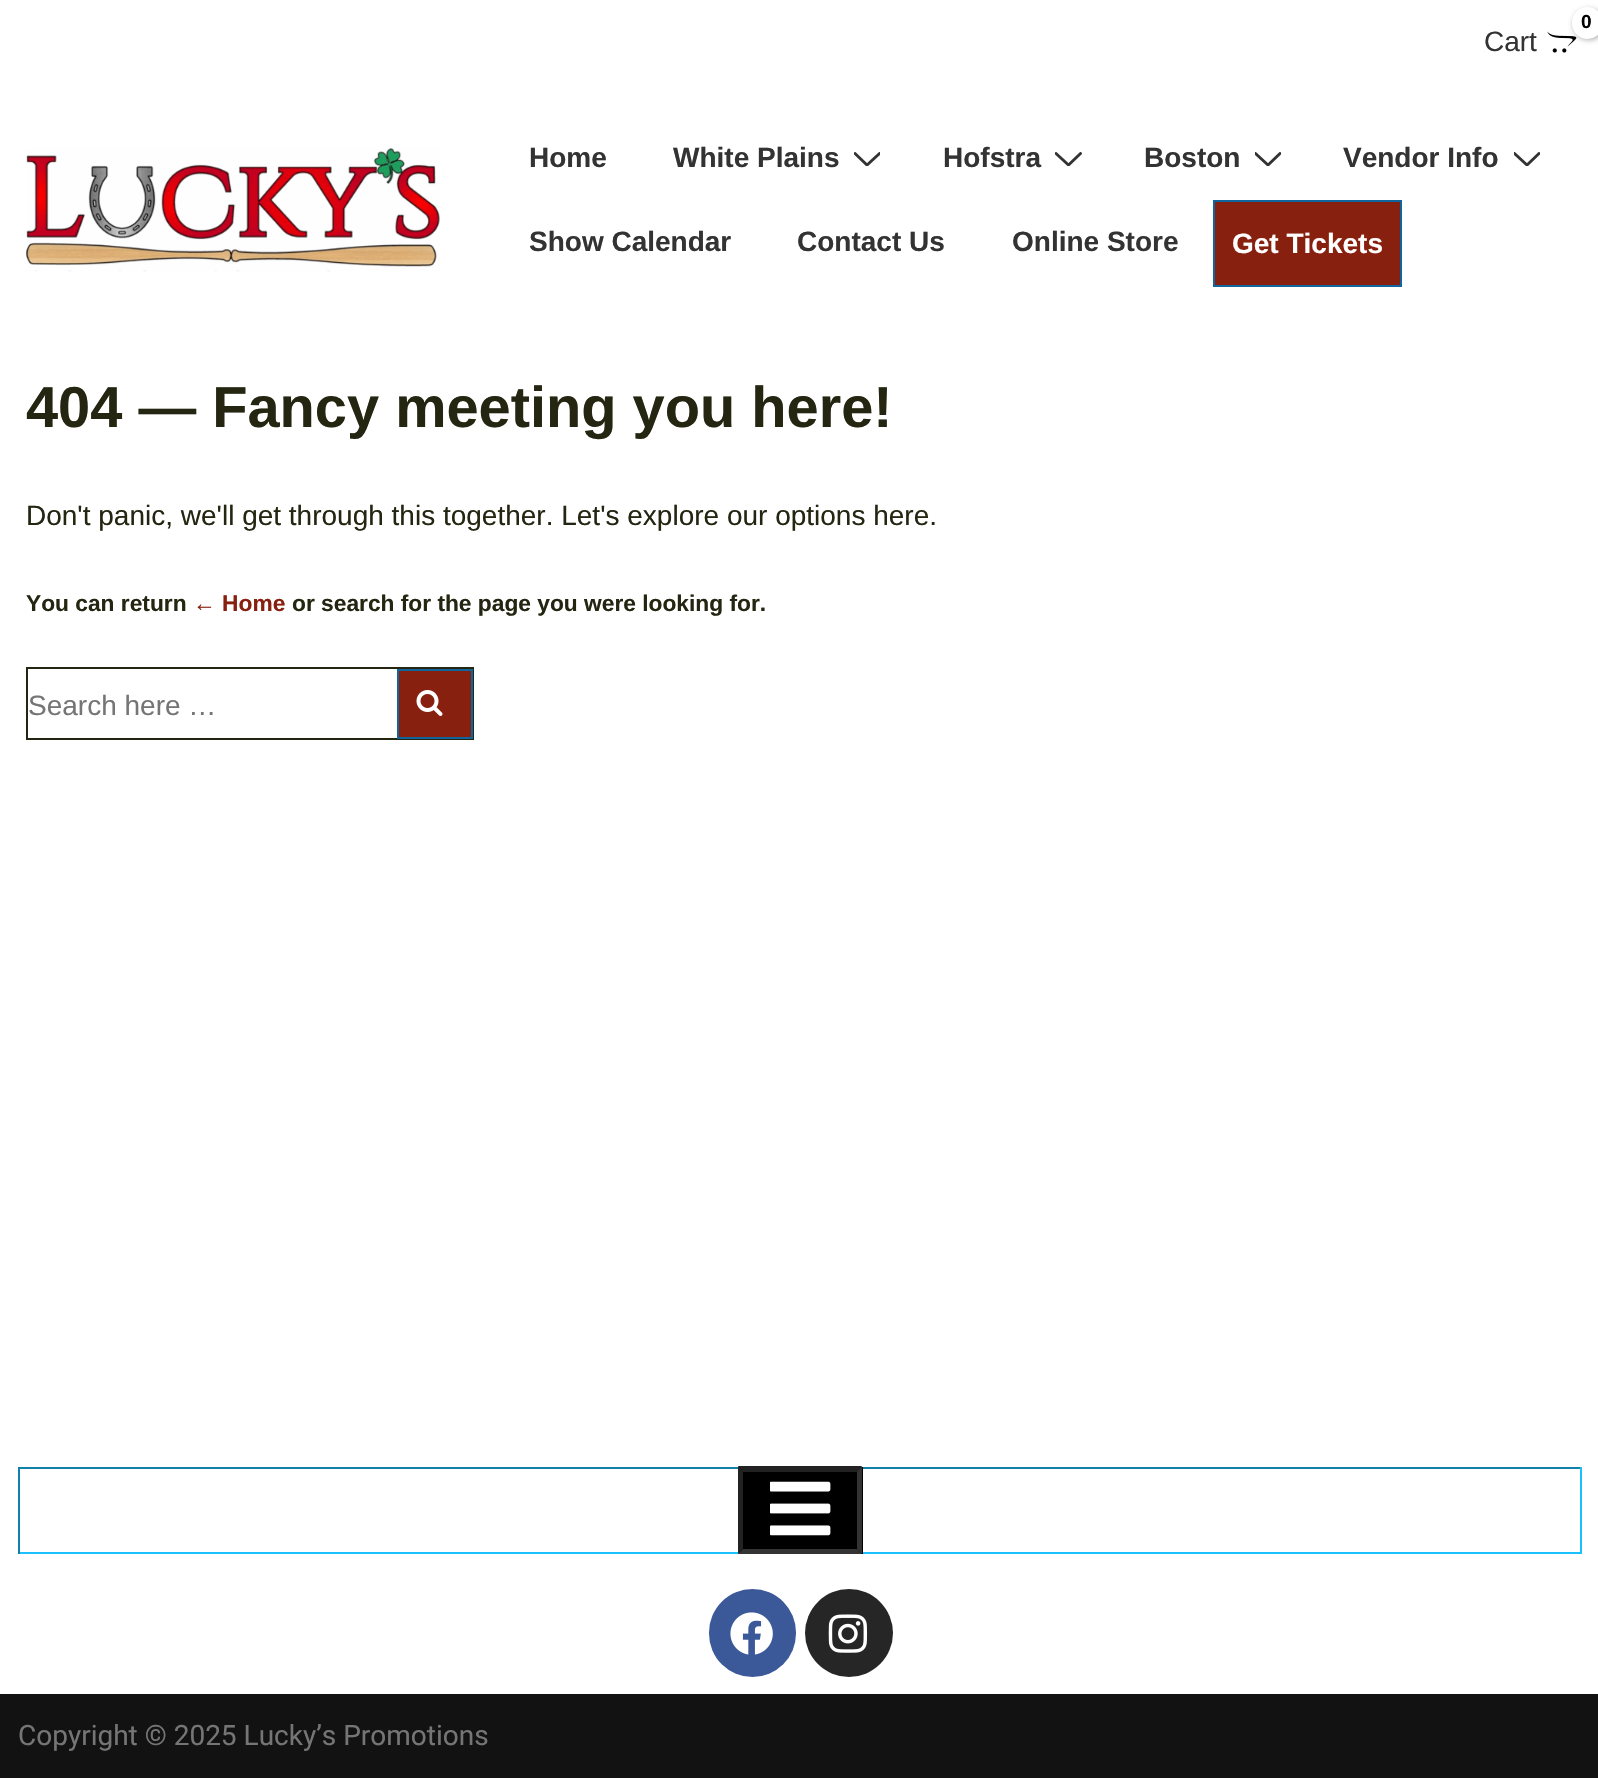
#include "include/core/SkBlurTypes.h"
#include "include/core/SkCanvas.h"
#include "include/core/SkData.h"
#include "include/core/SkFont.h"
#include "include/core/SkFontMgr.h"
#include "include/core/SkImage.h"
#include "include/core/SkMaskFilter.h"
#include "include/core/SkPaint.h"
#include "include/core/SkPathBuilder.h"
#include "include/core/SkTextBlob.h"
#include "include/effects/SkDashPathEffect.h"
#include "include/effects/SkGradientShader.h"
#include "include/utils/SkParsePath.h"

extern sk_sp<SkFontMgr> fontMgr;

static SkFont font(const char* family, int weight, float size, bool italic = false) {
    SkFontStyle style(weight, SkFontStyle::kNormal_Width,
        italic ? SkFontStyle::kItalic_Slant : SkFontStyle::kUpright_Slant);
    SkFont result(fontMgr->matchFamilyStyle(family, style), size);
    result.setSubpixel(true);
    return result;
}

static void drawLabel(SkCanvas* canvas, const char* s, float x, float y, const SkFont& font, SkColor color) {
    SkPaint ink(SkColor4f::FromColor(color));
    ink.setAntiAlias(true);
    canvas->drawString(s, x, y, font, ink);
}

static void drawTracked(SkCanvas* canvas, const char* s, float x, float y, const SkFont& font, const SkPaint& ink, float letter, float word) {
    std::vector<SkGlyphID> glyphs(font.countText(s, strlen(s), SkTextEncoding::kUTF8));
    std::vector<float> xs(glyphs.size());
    font.textToGlyphs(s, strlen(s), SkTextEncoding::kUTF8, glyphs);
    font.getXPos(glyphs, xs, x);
    float extra = 0;
    for (size_t i = 0; i < glyphs.size(); i++) {
        xs[i] += extra;
        extra += letter + word * (glyphs[i] == font.unicharToGlyph(' '));
    }
    canvas->drawTextBlob(SkTextBlob::MakeFromPosHGlyphs(glyphs, xs, y, font), 0, 0, ink);
}

static void fillRect(SkCanvas* canvas, float x, float y, float w, float h, SkColor color) {
    SkPaint ink(SkColor4f::FromColor(color));
    ink.setAntiAlias(true);
    canvas->drawRect(SkRect::MakeXYWH(x, y, w, h), ink);
}

static void fillRRect(SkCanvas* canvas, float x, float y, float w, float h, float radius, SkColor color) {
    SkPaint ink(SkColor4f::FromColor(color));
    ink.setAntiAlias(true);
    canvas->drawRoundRect(SkRect::MakeXYWH(x, y, w, h), radius, radius, ink);
}

static void drawPhoto(SkCanvas* canvas, const char* path, float x, float y, float w, float h) {
    auto image = SkImages::DeferredFromEncodedData(SkData::MakeFromFileName(path));
    canvas->drawImageRect(image, SkRect::MakeXYWH(x, y, w, h), SkSamplingOptions());
}

static SkPath parsePath(const char* data, bool evenOdd = false) {
    SkPath result = *SkParsePath::FromSVGString(data);
    if (evenOdd) result.setFillType(SkPathFillType::kEvenOdd);
    return result;
}

void draw(SkCanvas* canvas) {
    SkPaint paint;
    paint.setAntiAlias(true);
    canvas->clear(0xFFFFFFFF);
    drawPhoto(canvas, "assets/img1.png", 1547, 31, 30, 22);
    canvas->save();
    canvas->clipPath(parsePath("M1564 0H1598V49H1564ZM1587.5 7C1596 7 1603 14 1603 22.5V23.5C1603 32 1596 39 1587.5 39C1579 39 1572 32 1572 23.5V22.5C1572 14 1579 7 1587.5 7Z", true), true);
    paint.setColor(0x4D000000);
    paint.setMaskFilter(SkMaskFilter::MakeBlur(kNormal_SkBlurStyle, 2.5f));
    canvas->drawRoundRect(SkRect::MakeXYWH(1573, 9, 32, 31), 15.5f, 15.5f, paint);
    paint.setMaskFilter(nullptr);
    canvas->restore();
    SkFont font1 = font("Liberation Sans", 700, 19);
    paint.setColor(0xFF000000);
    drawTracked(canvas, "0", 1581, 28, font1, paint, -1, 0);
    SkFont font2 = font("Liberation Sans", 400, 28);
    drawLabel(canvas, "Cart", 1484, 51, font2, 0xFF333333);
    drawPhoto(canvas, "assets/img2.png", 26, 148, 414, 124);
    SkFont font3 = font("Liberation Sans", 700, 28);
    drawLabel(canvas, "Home", 529, 167, font3, 0xFF333333);
    drawLabel(canvas, "White Plains", 673, 167, font3, 0xFF333333);
    canvas->save();
    canvas->clipRect(SkRect::MakeXYWH(854, 152, 26, 14));
    paint.setStroke(true);
    paint.setStrokeWidth(2.9f);
    paint.setStrokeCap(SkPaint::kRound_Cap);
    paint.setColor(0xFF333333);
    canvas->drawPath(parsePath("M855 153.5L867 165L879.5 153.5"), paint);
    canvas->restore();
    drawLabel(canvas, "Hofstra", 943, 167, font3, 0xFF333333);
    canvas->save();
    canvas->clipRect(SkRect::MakeXYWH(1055, 152, 27, 14));
    canvas->drawPath(parsePath("M1056 153.5L1068.5 165L1080.5 153.5"), paint);
    canvas->restore();
    drawLabel(canvas, "Boston", 1144, 167, font3, 0xFF333333);
    canvas->save();
    canvas->clipRect(SkRect::MakeXYWH(1255, 152, 26, 14));
    canvas->drawPath(parsePath("M1255.5 153.5L1268 165L1280 153.5"), paint);
    canvas->restore();
    drawLabel(canvas, "Vendor Info", 1343, 167, font3, 0xFF333333);
    canvas->save();
    canvas->clipRect(SkRect::MakeXYWH(1514, 152, 26, 14));
    canvas->drawPath(parsePath("M1514.5 153.5L1527 165L1539 153.5"), paint);
    canvas->restore();
    drawLabel(canvas, "Show Calendar", 529, 251, font3, 0xFF333333);
    drawLabel(canvas, "Contact Us", 797, 251, font3, 0xFF333333);
    drawLabel(canvas, "Online Store", 1012, 251, font3, 0xFF333333);
    paint.setStroke(false);
    paint.setColor(0xFF87200E);
    canvas->drawRect(SkRect::MakeXYWH(1214, 201, 187, 85), paint);
    paint.setStroke(true);
    paint.setStrokeWidth(2);
    paint.setStrokeCap(SkPaint::kButt_Cap);
    paint.setColor(0xFF10659C);
    canvas->drawRect(SkRect::MakeXYWH(1214, 201, 187, 85), paint);
    drawLabel(canvas, "Get Tickets", 1232, 253, font3, 0xFFFFFFFF);
    SkFont font4 = font("Liberation Sans", 700, 57.75f);
    drawLabel(canvas, "404 — Fancy meeting you here!", 26, 427, font4, 0xFF242611);
    drawLabel(canvas, "Don't panic, we'll get through this together. Let's explore our options here.", 26, 525, font2, 0xFF242611);
    SkFont font5 = font("Liberation Sans", 700, 22.75f);
    drawLabel(canvas, "You can return", 26, 611, font5, 0xFF242611);
    drawLabel(canvas, "← Home", 193, 611, font5, 0xFF87200E);
    drawLabel(canvas, "or search for the page you were looking for.", 292, 611, font5, 0xFF242611);
    paint.setColor(0xFF242611);
    canvas->drawRect(SkRect::MakeXYWH(27, 668, 446, 71), paint);
    drawLabel(canvas, "Search here …", 28, 715, font2, 0xFF757575);
    paint.setStroke(false);
    paint.setColor(0xFF87200E);
    canvas->drawRect(SkRect::MakeXYWH(398, 670, 74, 68), paint);
    paint.setStroke(true);
    paint.setColor(0xFF10659C);
    canvas->drawRect(SkRect::MakeXYWH(398, 670, 74, 68), paint);
    drawPhoto(canvas, "assets/img3.png", 416, 690, 27, 26);
    fillRect(canvas, 18, 1467, 1564, 2, 0xFF1281AA);
    fillRect(canvas, 1580, 1467, 2, 87, 0xFF1BC1FF);
    fillRect(canvas, 18, 1552, 1564, 2, 0xFF1BC1FF);
    fillRect(canvas, 18, 1467, 2, 87, 0xFF1281AA);
    fillRect(canvas, 739, 1467, 124, 87, 0xFF000000);
    paint.setStroke(false);
    paint.setColor(0xFF222222);
    canvas->drawPath(parsePath("M738 1466H862L857 1472H743Z"), paint);
    paint.setColor(0xFF333333);
    canvas->drawPath(parsePath("M862 1466V1554L857 1549V1472Z"), paint);
    canvas->drawPath(parsePath("M862 1554H738L743 1549H857Z"), paint);
    paint.setColor(0xFF222222);
    canvas->drawPath(parsePath("M738 1554V1466L743 1472V1549Z"), paint);
    drawPhoto(canvas, "assets/img4.png", 770, 1481, 61, 55);
    fillRRect(canvas, 709, 1589, 87, 88, 43.5f, 0xFF3B5998);
    drawPhoto(canvas, "assets/img5.png", 730, 1612, 43, 43);
    paint.setColor(0xFF262626);
    canvas->drawCircle(849, 1633, 44, paint);
    drawPhoto(canvas, "assets/img6.png", 828, 1614, 40, 39);
    fillRect(canvas, 0, 1694, 1598, 84, 0xFF131212);
    SkFont font6 = font("Roboto", 400, 28);
    drawLabel(canvas, "Copyright © 2025 Lucky’s Promotions", 18, 1745, font6, 0xFF757575);
}
